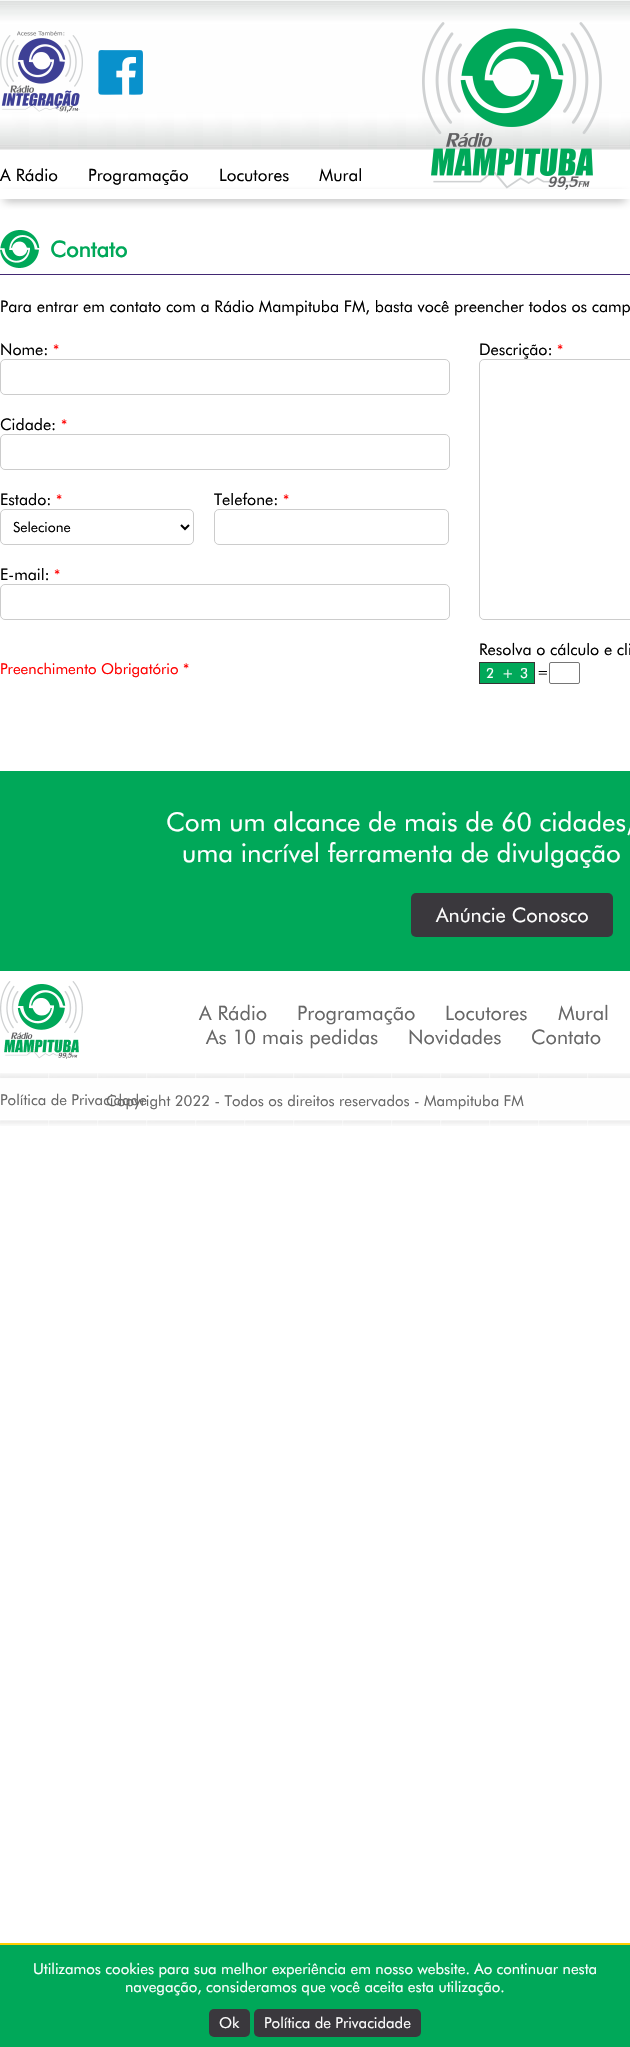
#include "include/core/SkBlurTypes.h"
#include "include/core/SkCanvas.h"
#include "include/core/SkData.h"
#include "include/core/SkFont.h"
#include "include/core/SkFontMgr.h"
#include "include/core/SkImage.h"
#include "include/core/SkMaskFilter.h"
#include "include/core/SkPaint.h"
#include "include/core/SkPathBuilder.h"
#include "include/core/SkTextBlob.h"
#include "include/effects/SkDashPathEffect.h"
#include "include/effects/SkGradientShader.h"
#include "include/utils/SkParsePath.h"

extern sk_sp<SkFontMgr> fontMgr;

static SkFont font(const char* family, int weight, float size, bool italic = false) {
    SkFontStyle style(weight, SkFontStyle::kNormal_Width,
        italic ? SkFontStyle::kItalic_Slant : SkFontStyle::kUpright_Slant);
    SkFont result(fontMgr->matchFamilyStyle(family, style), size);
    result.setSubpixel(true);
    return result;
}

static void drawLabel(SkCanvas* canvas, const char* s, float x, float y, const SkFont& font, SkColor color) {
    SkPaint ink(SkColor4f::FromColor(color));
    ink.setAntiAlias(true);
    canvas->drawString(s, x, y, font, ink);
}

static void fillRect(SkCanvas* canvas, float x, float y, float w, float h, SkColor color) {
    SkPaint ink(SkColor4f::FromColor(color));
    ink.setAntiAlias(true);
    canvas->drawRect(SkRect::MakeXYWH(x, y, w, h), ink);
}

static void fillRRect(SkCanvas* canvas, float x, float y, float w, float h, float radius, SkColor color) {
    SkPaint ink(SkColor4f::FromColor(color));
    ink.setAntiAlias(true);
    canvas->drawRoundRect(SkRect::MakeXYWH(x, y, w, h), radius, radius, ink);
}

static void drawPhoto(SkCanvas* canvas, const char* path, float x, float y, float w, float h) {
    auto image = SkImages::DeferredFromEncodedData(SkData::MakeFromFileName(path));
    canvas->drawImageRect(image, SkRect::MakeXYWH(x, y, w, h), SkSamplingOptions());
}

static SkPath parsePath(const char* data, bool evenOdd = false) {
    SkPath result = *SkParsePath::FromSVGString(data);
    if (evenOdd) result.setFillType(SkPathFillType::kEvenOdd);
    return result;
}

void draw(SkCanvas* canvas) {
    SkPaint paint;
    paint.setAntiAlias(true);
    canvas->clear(0xFFFFFFFF);
    drawPhoto(canvas, "assets/img1.png", 0, 0, 630, 150);
    drawPhoto(canvas, "assets/img2.png", 0, 31, 83, 82);
    drawPhoto(canvas, "assets/img3.png", 98, 50, 45, 45);
    canvas->save();
    canvas->clipPath(parsePath("M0 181H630V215H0ZM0 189H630V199H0Z", true), true);
    paint.setColor(0xFF000000);
    paint.setMaskFilter(SkMaskFilter::MakeBlur(kNormal_SkBlurStyle, 5));
    canvas->drawRect(SkRect::MakeXYWH(4, 197, 622, 2), paint);
    paint.setMaskFilter(nullptr);
    canvas->restore();
    drawPhoto(canvas, "assets/img4.png", 422, 22, 180, 168);
    SkFont font1 = font("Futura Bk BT", 400, 17);
    drawLabel(canvas, "A Rádio", 0, 181, font1, 0xFF000000);
    drawLabel(canvas, "Programação", 88, 181, font1, 0xFF000000);
    drawLabel(canvas, "Locutores", 219, 181, font1, 0xFF000000);
    drawLabel(canvas, "Mural", 319, 181, font1, 0xFF000000);
    fillRect(canvas, 0, 274, 630, 1, 0xFF422873);
    drawPhoto(canvas, "assets/img5.png", 0, 230, 40, 38);
    SkFont font2 = font("Futura Bk BT", 700, 22);
    drawLabel(canvas, "Contato", 50, 257, font2, 0xFF00A859);
    SkFont font3 = font("Futura Bk BT", 400, 16);
    drawLabel(canvas, "Para entrar em contato com a Rádio Mampituba FM, basta você preencher todos os camp", 0, 312, font3, 0xFF000000);
    drawLabel(canvas, "Nome:", 0, 355, font3, 0xFF000000);
    SkFont font4 = font("Futura Bk BT", 400, 15);
    drawLabel(canvas, "*", 53, 355, font4, 0xFFFF0000);
    paint.setStroke(true);
    paint.setStrokeWidth(1);
    paint.setColor(0xFFCCCCCC);
    canvas->drawRoundRect(SkRect::MakeXYWH(0.5f, 359.5f, 449, 35), 4.5f, 4.5f, paint);
    drawLabel(canvas, "Cidade:", 0, 430, font3, 0xFF000000);
    drawLabel(canvas, "*", 61, 430, font4, 0xFFFF0000);
    canvas->drawRoundRect(SkRect::MakeXYWH(0.5f, 434.5f, 449, 35), 4.5f, 4.5f, paint);
    drawLabel(canvas, "Estado:", 0, 505, font3, 0xFF000000);
    drawLabel(canvas, "*", 56, 505, font4, 0xFFFF0000);
    canvas->drawRoundRect(SkRect::MakeXYWH(0.5f, 509.5f, 193, 35), 4.5f, 4.5f, paint);
    paint.setStrokeWidth(2);
    paint.setColor(0xFF000000);
    canvas->drawPath(parsePath("M181 525L185 529L189 525"), paint);
    SkFont font5 = font("Futura Bk BT", 400, 14);
    drawLabel(canvas, "Selecione", 13, 532, font5, 0xFF000000);
    drawLabel(canvas, "Telefone:", 214, 505, font3, 0xFF000000);
    drawLabel(canvas, "*", 283, 505, font4, 0xFFFF0000);
    paint.setStrokeWidth(1);
    paint.setColor(0xFFCCCCCC);
    canvas->drawRoundRect(SkRect::MakeXYWH(214.5f, 509.5f, 234, 35), 4.5f, 4.5f, paint);
    drawLabel(canvas, "E-mail:", 0, 580, font3, 0xFF000000);
    drawLabel(canvas, "*", 54, 580, font4, 0xFFFF0000);
    canvas->drawRoundRect(SkRect::MakeXYWH(0.5f, 584.5f, 449, 35), 4.5f, 4.5f, paint);
    drawLabel(canvas, "Descrição:", 479, 355, font3, 0xFF000000);
    drawLabel(canvas, "*", 557, 355, font4, 0xFFFF0000);
    canvas->drawRoundRect(SkRect::MakeXYWH(479.5f, 359.5f, 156, 260), 4.5f, 4.5f, paint);
    drawLabel(canvas, "Preenchimento Obrigatório *", 0, 674, font4, 0xFFFF0000);
    drawLabel(canvas, "Resolva o cálculo e cli", 479, 655, font3, 0xFF000000);
    fillRect(canvas, 480, 663, 54, 20, 0xFF00A859);
    fillRect(canvas, 479, 662, 56, 1, 0xFF373435);
    fillRect(canvas, 479, 683, 35, 1, 0xFF373435);
    fillRect(canvas, 479, 662, 1, 22, 0xFF373435);
    drawLabel(canvas, "2", 486, 678, font5, 0xFFFFFFFF);
    drawLabel(canvas, "+", 502, 678, font5, 0xFFFFFFFF);
    fillRect(canvas, 534, 662, 1, 22, 0xFF373435);
    fillRect(canvas, 514, 683, 21, 1, 0xFF373435);
    drawLabel(canvas, "3", 520, 678, font5, 0xFFFFFFFF);
    drawLabel(canvas, "=", 537, 677, font5, 0xFF000000);
    paint.setColor(0xFF767676);
    canvas->drawRoundRect(SkRect::MakeXYWH(549.5f, 662.5f, 30, 21), 1.5f, 1.5f, paint);
    fillRect(canvas, 0, 771, 630, 200, 0xFF00A859);
    SkFont font6 = font("Futura Bk BT", 400, 26);
    drawLabel(canvas, "Com um alcance de mais de 60 cidades,", 166, 831, font6, 0xFFFFFFFF);
    drawLabel(canvas, "uma incrível ferramenta de divulgação", 182, 862, font6, 0xFFFFFFFF);
    fillRRect(canvas, 411, 893, 202, 44, 5, 0xFF3A383D);
    SkFont font7 = font("Futura Bk BT", 400, 20);
    drawLabel(canvas, "Anúncie Conosco", 436, 922, font7, 0xFFFFFFFF);
    drawPhoto(canvas, "assets/img6.png", 0, 981, 83, 78);
    drawLabel(canvas, "A Rádio", 199, 1020, font7, 0xFF676767);
    drawLabel(canvas, "Programação", 297, 1020, font7, 0xFF676767);
    drawLabel(canvas, "Locutores", 445, 1020, font7, 0xFF676767);
    drawLabel(canvas, "Mural", 558, 1020, font7, 0xFF676767);
    drawLabel(canvas, "As 10 mais pedidas", 206, 1044, font7, 0xFF676767);
    drawLabel(canvas, "Novidades", 408, 1044, font7, 0xFF676767);
    drawLabel(canvas, "Contato", 531, 1044, font7, 0xFF676767);
    drawPhoto(canvas, "assets/img7.png", 0, 1073, 630, 53);
    drawLabel(canvas, "Copyright 2022 - Todos os direitos reservados - Mampituba FM", 106, 1106, font4, 0xFF676767);
    drawLabel(canvas, "Política de Privacidade", 0, 1105, font4, 0xFF676767);
    fillRect(canvas, 0, 1945, 630, 102, 0xFF00A859);
    fillRect(canvas, 0, 1943, 630, 2, 0xFFFFCC00);
    drawLabel(canvas, "Utilizamos cookies para sua melhor experiência em nosso website. Ao continuar nesta", 33, 1974, font4, 0xFFFFFFFF);
    drawLabel(canvas, "navegação, consideramos que você aceita esta utilização.", 125, 1992, font4, 0xFFFFFFFF);
    fillRRect(canvas, 209, 2009, 41, 28, 5, 0xFF3A383D);
    drawLabel(canvas, "Ok", 219, 2028, font4, 0xFFFFFFFF);
    fillRRect(canvas, 254, 2009, 167, 28, 5, 0xFF3A383D);
    drawLabel(canvas, "Política de Privacidade", 264, 2028, font4, 0xFFFFFFFF);
}
